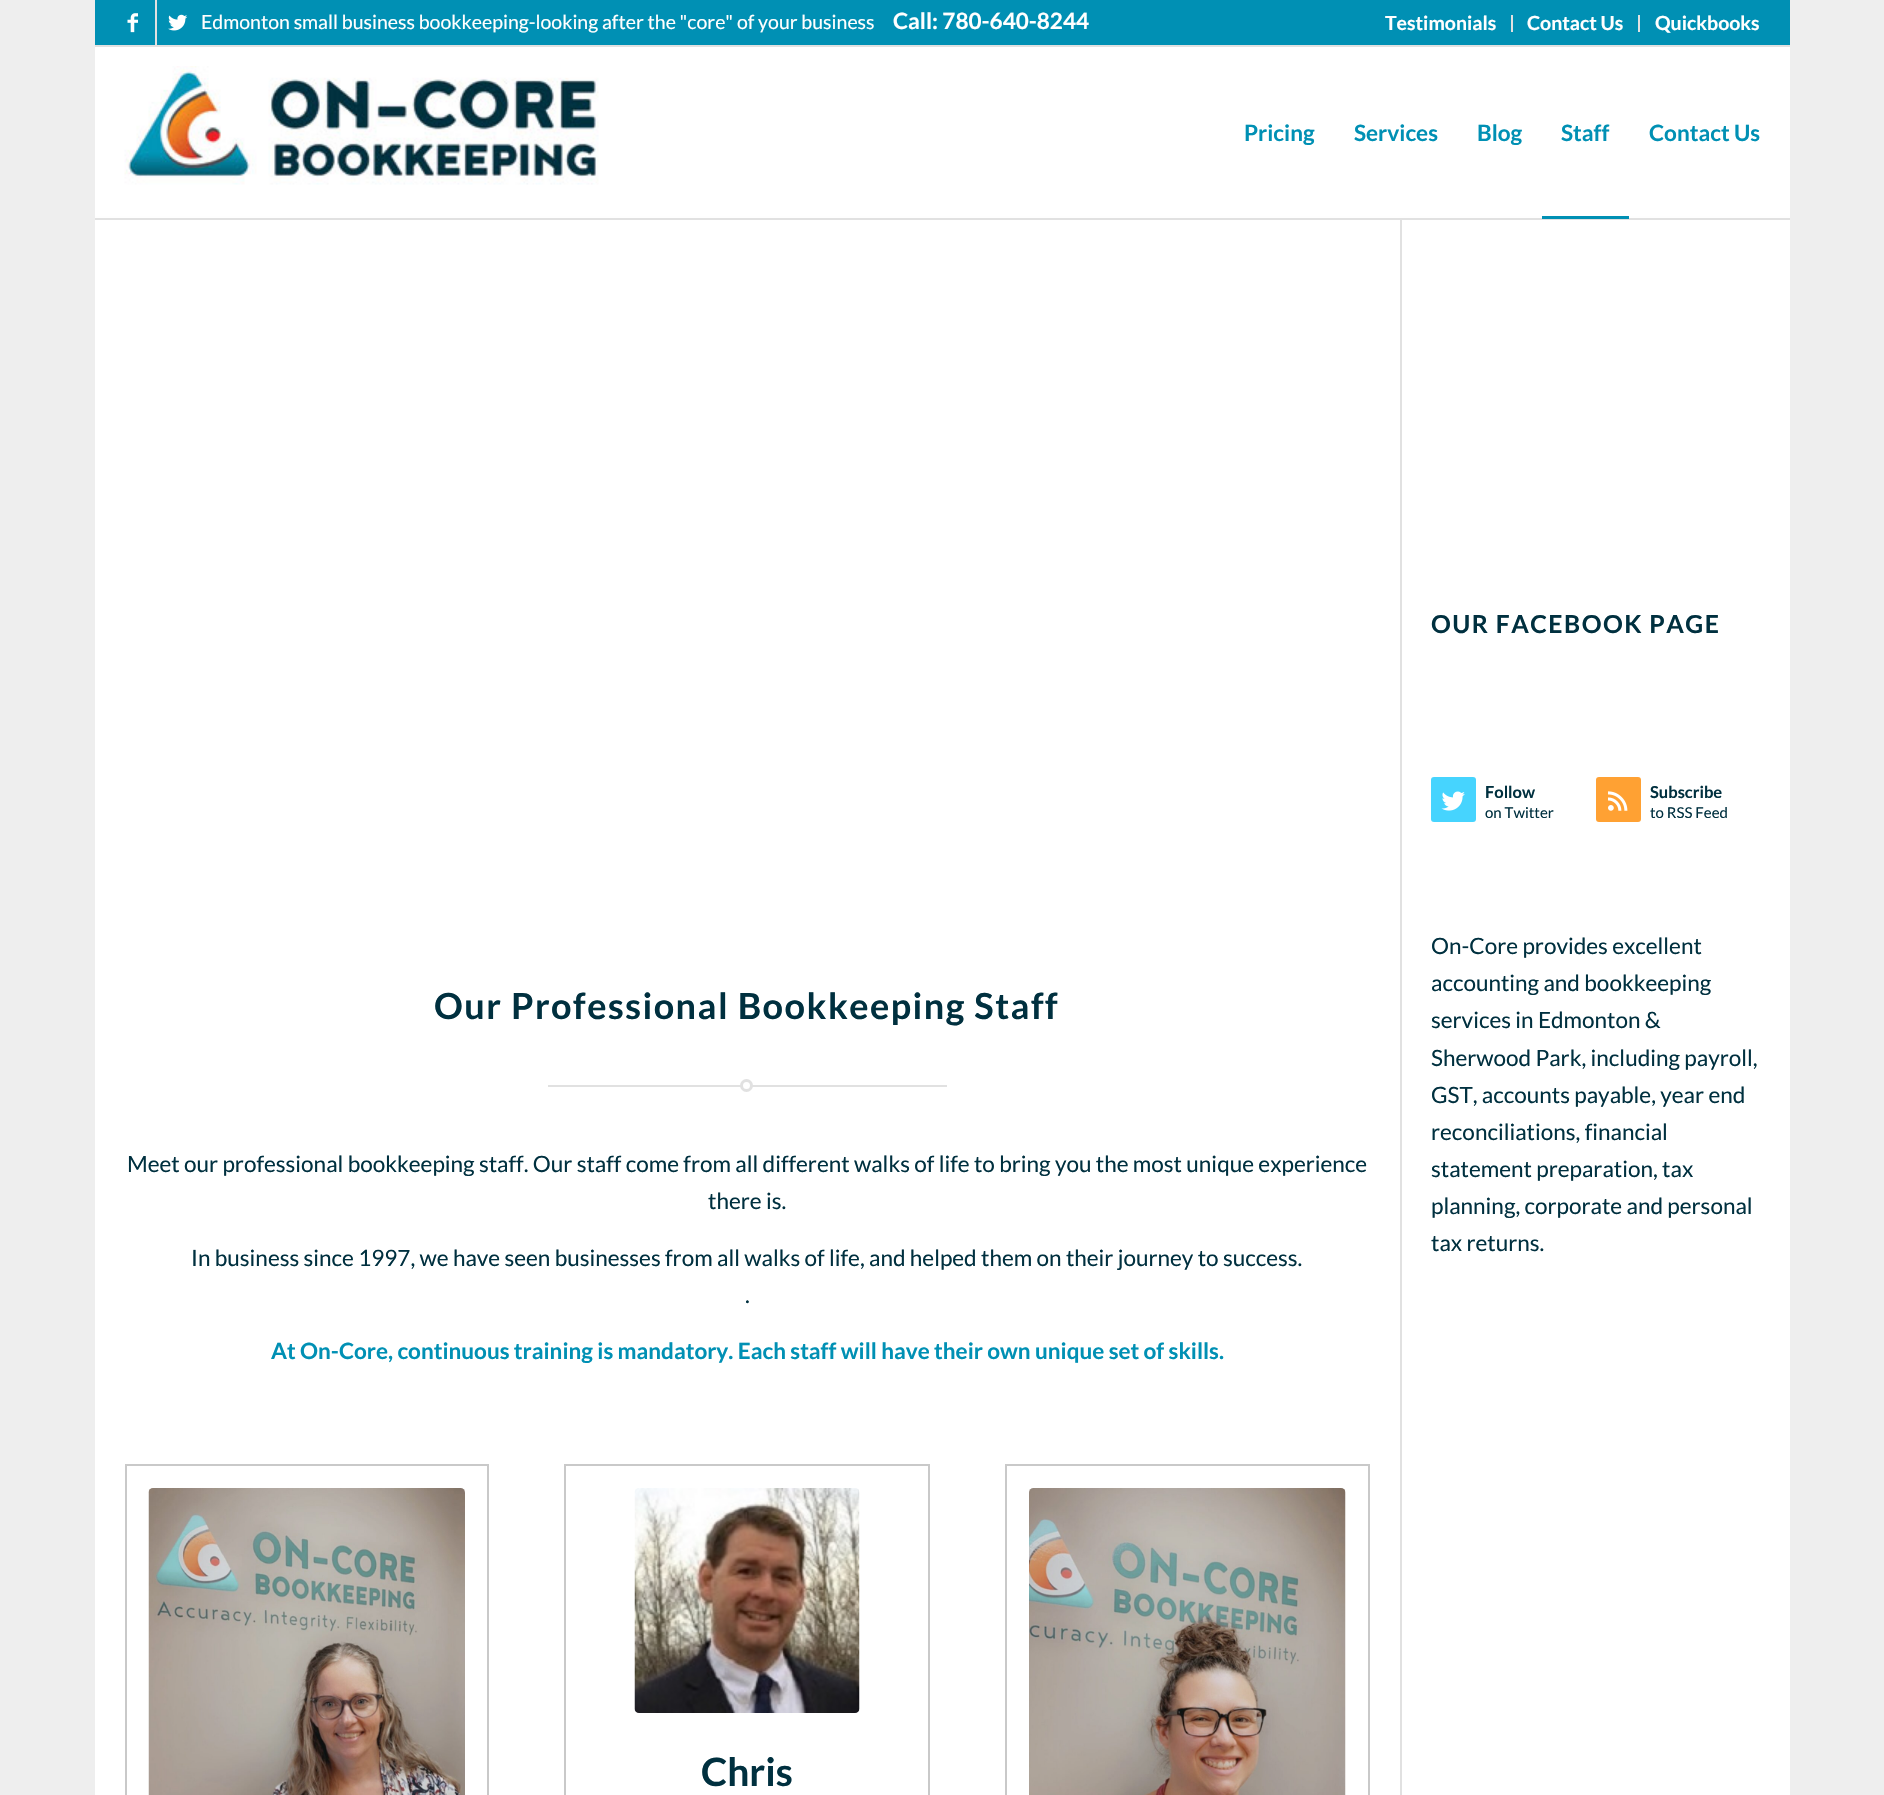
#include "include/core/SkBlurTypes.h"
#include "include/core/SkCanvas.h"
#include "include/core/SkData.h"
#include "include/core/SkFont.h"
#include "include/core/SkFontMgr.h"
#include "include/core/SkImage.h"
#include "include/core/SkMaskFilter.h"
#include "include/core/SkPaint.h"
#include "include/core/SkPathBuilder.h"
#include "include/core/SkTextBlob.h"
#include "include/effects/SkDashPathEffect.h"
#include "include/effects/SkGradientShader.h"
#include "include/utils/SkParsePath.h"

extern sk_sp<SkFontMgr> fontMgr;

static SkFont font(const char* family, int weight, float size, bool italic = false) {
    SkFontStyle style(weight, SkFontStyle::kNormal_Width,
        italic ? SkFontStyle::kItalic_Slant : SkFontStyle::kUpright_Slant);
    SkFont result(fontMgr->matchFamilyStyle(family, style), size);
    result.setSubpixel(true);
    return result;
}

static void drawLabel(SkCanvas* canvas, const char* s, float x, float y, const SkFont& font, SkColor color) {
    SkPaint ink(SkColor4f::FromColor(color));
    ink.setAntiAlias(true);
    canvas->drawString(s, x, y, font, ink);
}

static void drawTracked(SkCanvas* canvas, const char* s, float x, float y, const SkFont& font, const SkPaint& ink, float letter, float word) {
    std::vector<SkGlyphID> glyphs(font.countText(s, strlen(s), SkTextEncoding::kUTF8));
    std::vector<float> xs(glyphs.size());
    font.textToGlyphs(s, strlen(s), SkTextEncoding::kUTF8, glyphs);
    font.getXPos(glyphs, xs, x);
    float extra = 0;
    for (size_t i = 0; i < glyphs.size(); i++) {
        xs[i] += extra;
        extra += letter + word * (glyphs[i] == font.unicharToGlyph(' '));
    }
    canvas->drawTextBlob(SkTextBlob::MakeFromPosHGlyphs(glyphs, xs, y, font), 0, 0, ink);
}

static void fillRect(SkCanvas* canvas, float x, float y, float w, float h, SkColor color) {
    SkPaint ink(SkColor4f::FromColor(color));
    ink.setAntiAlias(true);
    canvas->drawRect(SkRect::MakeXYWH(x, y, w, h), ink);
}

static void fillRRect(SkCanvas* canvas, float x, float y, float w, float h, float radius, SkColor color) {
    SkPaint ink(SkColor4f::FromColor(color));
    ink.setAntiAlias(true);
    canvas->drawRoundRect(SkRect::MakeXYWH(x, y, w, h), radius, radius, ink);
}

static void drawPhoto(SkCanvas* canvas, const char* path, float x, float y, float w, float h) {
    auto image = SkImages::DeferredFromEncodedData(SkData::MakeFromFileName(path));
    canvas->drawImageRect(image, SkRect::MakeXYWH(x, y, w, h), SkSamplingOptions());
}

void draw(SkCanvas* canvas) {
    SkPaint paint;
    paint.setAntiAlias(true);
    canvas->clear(0xFFEEEEEE);
    fillRect(canvas, 95, 0, 1695, 45, 0xFF0090B4);
    fillRect(canvas, 95, 45, 1695, 2, 0xFFE1E1E1);
    fillRect(canvas, 155, 0, 2, 45, 0xFFE1E1E1);
    drawPhoto(canvas, "assets/img1.png", 127, 13, 11, 20);
    drawPhoto(canvas, "assets/img2.png", 168, 14, 20, 17);
    SkFont font1 = font("Lato", 400, 19.5f);
    drawLabel(canvas, "Edmonton small business bookkeeping-looking after the \"core\" of your business", 201, 29, font1, 0xFFFFFFFF);
    SkFont font2 = font("Lato", 700, 22.5f);
    drawLabel(canvas, "Call: 780-640-8244", 893, 29, font2, 0xFFFFFFFF);
    fillRect(canvas, 1511, 15, 2, 17, 0xFFE1E1E1);
    SkFont font3 = font("Lato", 700, 19.5f);
    drawLabel(canvas, "Testimonials", 1385, 30, font3, 0xFFFFFFFF);
    fillRect(canvas, 1638, 15, 2, 17, 0xFFE1E1E1);
    drawLabel(canvas, "Contact Us", 1527, 30, font3, 0xFFFFFFFF);
    drawLabel(canvas, "Quickbooks", 1655, 30, font3, 0xFFFFFFFF);
    fillRect(canvas, 95, 220, 1695, 1575, 0xFFFFFFFF);
    fillRect(canvas, 1400, 218, 2, 1577, 0xFFE1E1E1);
    fillRect(canvas, 95, 218, 1695, 2, 0xFFE1E1E1);
    fillRect(canvas, 95, 47, 1695, 169, 0xFFFFFFFF);
    drawPhoto(canvas, "assets/img3.png", 124, 66, 475, 119);
    drawLabel(canvas, "Pricing", 1244, 141, font2, 0xFF0090B4);
    drawLabel(canvas, "Services", 1354, 141, font2, 0xFF0090B4);
    drawLabel(canvas, "Blog", 1477, 141, font2, 0xFF0090B4);
    drawLabel(canvas, "Staff", 1561, 141, font2, 0xFF0090B4);
    fillRect(canvas, 95, 216, 1695, 2, 0xFFFEFEFE);
    fillRect(canvas, 1542, 216, 87, 3, 0xFF0090B4);
    drawLabel(canvas, "Contact Us", 1649, 141, font2, 0xFF0090B4);
    SkFont font4 = font("Lato", 700, 36);
    paint.setColor(0xFF00303F);
    drawTracked(canvas, "Our Professional Bookkeeping Staff", 434, 1019, font4, paint, 1.5f, 0);
    fillRect(canvas, 548, 1085, 399, 2, 0xFFE1E1E1);
    paint.setColor(0xFFFFFFFF);
    canvas->drawCircle(746.5f, 1085.5f, 5, paint);
    paint.setStroke(true);
    paint.setStrokeWidth(3);
    paint.setColor(0xFFE1E1E1);
    canvas->drawCircle(746.5f, 1085.5f, 5, paint);
    SkFont font5 = font("Lato", 400, 22.5f);
    drawLabel(canvas, "Meet our professional bookkeeping staff. Our staff come from all different walks of life to bring you the most unique experience", 127, 1172, font5, 0xFF00303F);
    drawLabel(canvas, "there is.", 708, 1209, font5, 0xFF00303F);
    drawLabel(canvas, "In business since 1997, we have seen businesses from all walks of life, and helped them on their journey to success.", 191, 1266, font5, 0xFF00303F);
    drawLabel(canvas, ".", 745, 1303, font5, 0xFF00303F);
    drawLabel(canvas, "At On-Core, continuous training is mandatory. Each staff will have their own unique set of skills.", 271, 1359, font2, 0xFF0090B4);
    paint.setStrokeWidth(2);
    paint.setColor(0xFFC9C9C9);
    canvas->drawRect(SkRect::MakeXYWH(126, 1465, 362, 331), paint);
    drawPhoto(canvas, "assets/img4.png", 148, 1488, 317, 307);
    canvas->drawRect(SkRect::MakeXYWH(565, 1465, 364, 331), paint);
    drawPhoto(canvas, "assets/img5.png", 634, 1488, 226, 225);
    SkFont font6 = font("Lato", 700, 39);
    drawLabel(canvas, "Chris", 701, 1786, font6, 0xFF00303F);
    canvas->drawRect(SkRect::MakeXYWH(1006, 1465, 363, 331), paint);
    drawPhoto(canvas, "assets/img6.png", 1029, 1488, 317, 307);
    SkFont font7 = font("Lato", 700, 24.75f);
    paint.setStroke(false);
    paint.setColor(0xFF00303F);
    drawTracked(canvas, "OUR FACEBOOK PAGE", 1431, 633, font7, paint, 1.5f, 0);
    fillRRect(canvas, 1431, 777, 45, 45, 3, 0xFF46D4FE);
    drawPhoto(canvas, "assets/img7.png", 1441, 791, 24, 20);
    SkFont font8 = font("Lato", 700, 16.5f);
    drawLabel(canvas, "Follow", 1485, 798, font8, 0xFF00303F);
    SkFont font9 = font("Lato", 400, 15);
    drawLabel(canvas, "on Twitter", 1485, 818, font9, 0xFF00303F);
    fillRRect(canvas, 1596, 777, 45, 45, 3, 0xFFFFA133);
    drawPhoto(canvas, "assets/img8.png", 1608, 791, 20, 20);
    drawLabel(canvas, "Subscribe", 1650, 798, font8, 0xFF00303F);
    drawLabel(canvas, "to RSS Feed", 1650, 818, font9, 0xFF00303F);
    drawLabel(canvas, "On-Core provides excellent", 1431, 954, font5, 0xFF00303F);
    drawLabel(canvas, "accounting and bookkeeping", 1431, 991, font5, 0xFF00303F);
    drawLabel(canvas, "services in Edmonton &", 1431, 1028, font5, 0xFF00303F);
    drawLabel(canvas, "Sherwood Park, including payroll,", 1431, 1066, font5, 0xFF00303F);
    drawLabel(canvas, "GST, accounts payable, year end", 1431, 1103, font5, 0xFF00303F);
    drawLabel(canvas, "reconciliations, financial", 1431, 1140, font5, 0xFF00303F);
    drawLabel(canvas, "statement preparation, tax", 1431, 1177, font5, 0xFF00303F);
    drawLabel(canvas, "planning, corporate and personal", 1431, 1214, font5, 0xFF00303F);
    drawLabel(canvas, "tax returns.", 1431, 1251, font5, 0xFF00303F);
}
